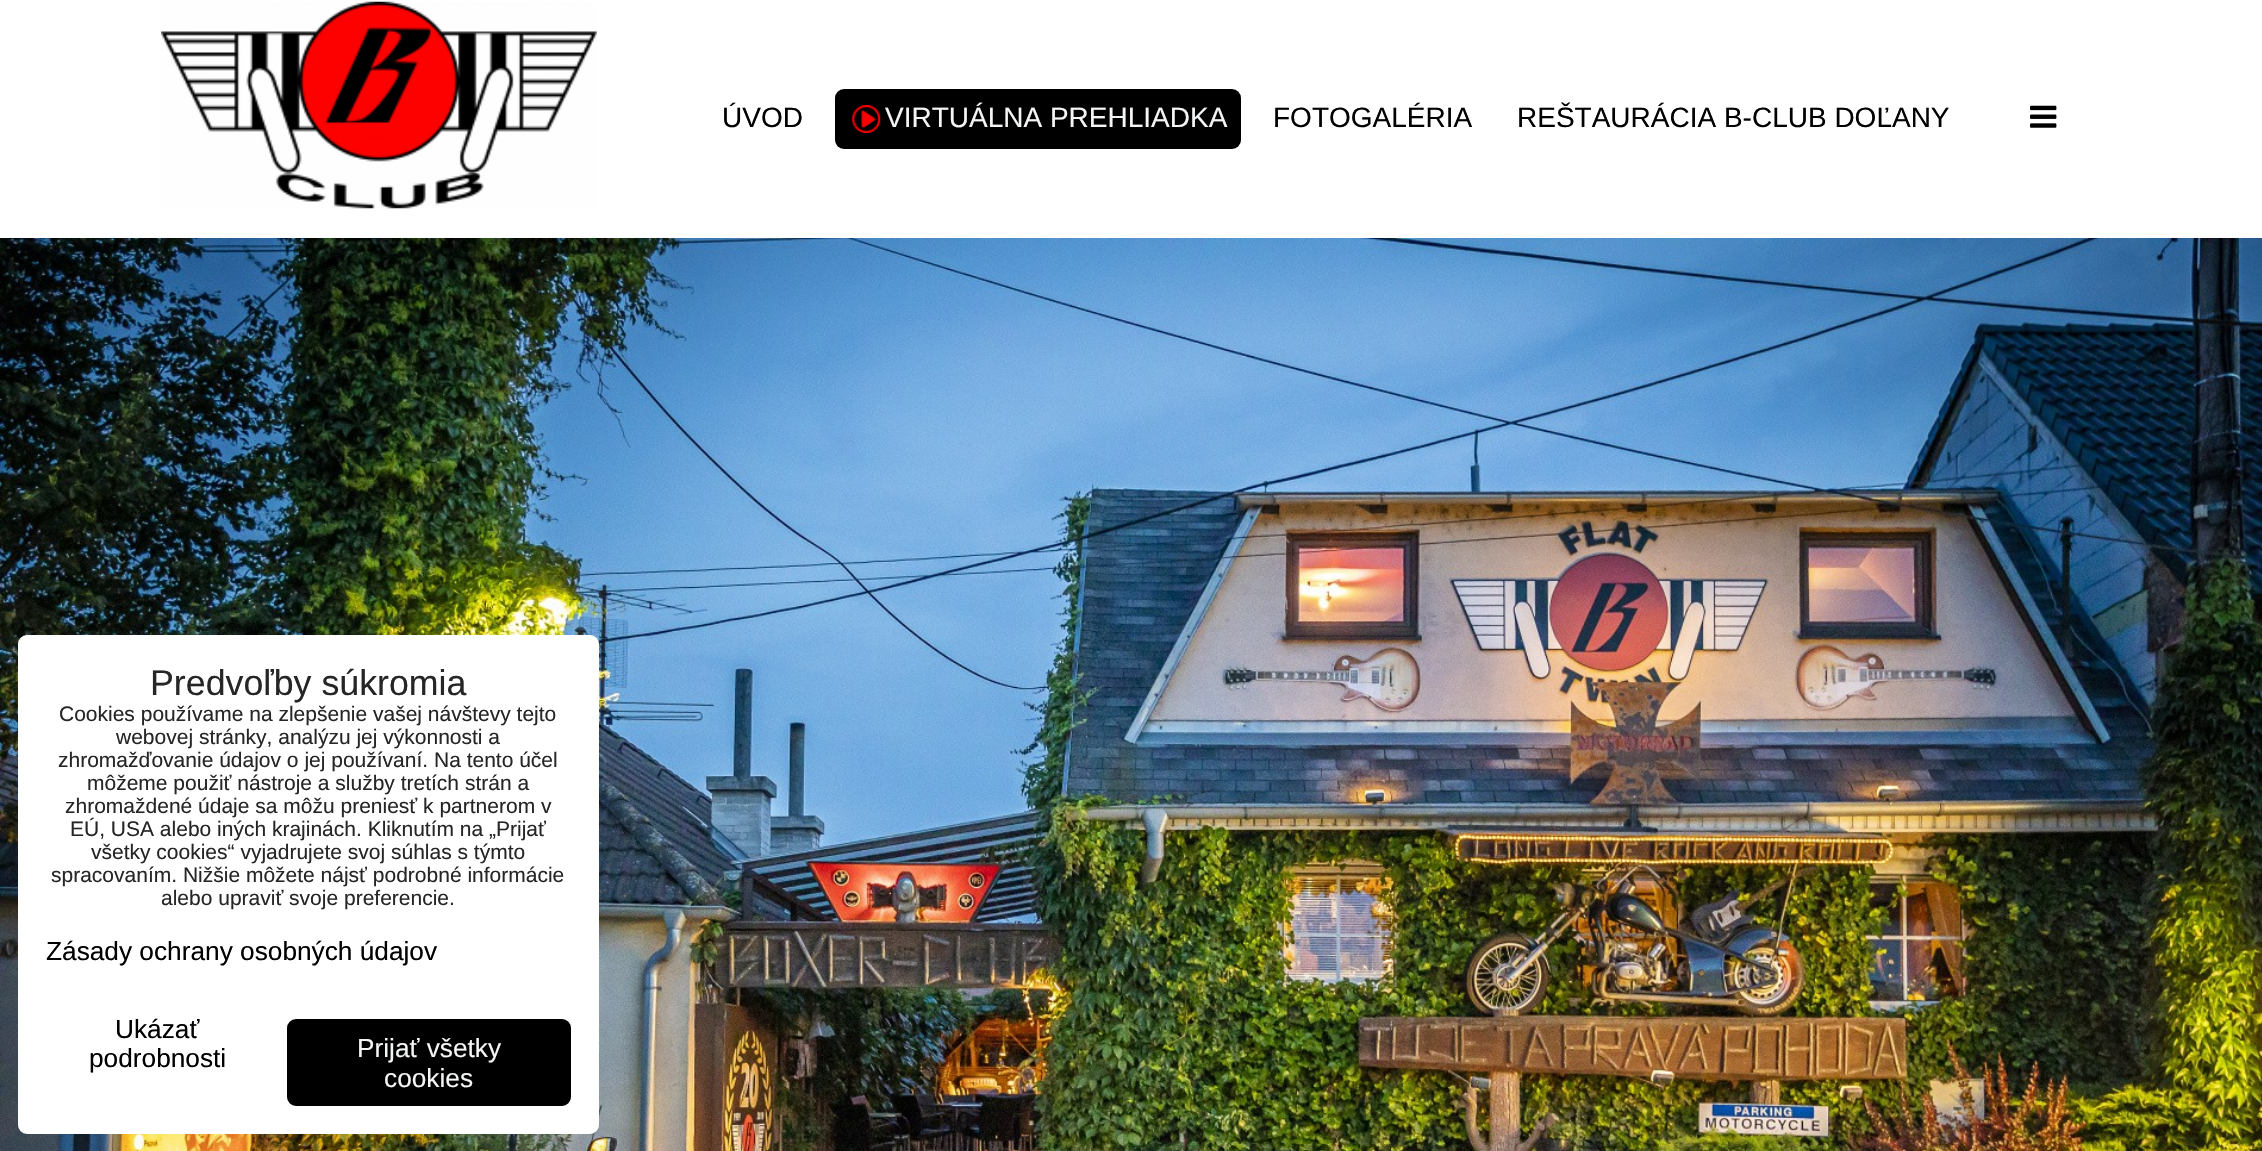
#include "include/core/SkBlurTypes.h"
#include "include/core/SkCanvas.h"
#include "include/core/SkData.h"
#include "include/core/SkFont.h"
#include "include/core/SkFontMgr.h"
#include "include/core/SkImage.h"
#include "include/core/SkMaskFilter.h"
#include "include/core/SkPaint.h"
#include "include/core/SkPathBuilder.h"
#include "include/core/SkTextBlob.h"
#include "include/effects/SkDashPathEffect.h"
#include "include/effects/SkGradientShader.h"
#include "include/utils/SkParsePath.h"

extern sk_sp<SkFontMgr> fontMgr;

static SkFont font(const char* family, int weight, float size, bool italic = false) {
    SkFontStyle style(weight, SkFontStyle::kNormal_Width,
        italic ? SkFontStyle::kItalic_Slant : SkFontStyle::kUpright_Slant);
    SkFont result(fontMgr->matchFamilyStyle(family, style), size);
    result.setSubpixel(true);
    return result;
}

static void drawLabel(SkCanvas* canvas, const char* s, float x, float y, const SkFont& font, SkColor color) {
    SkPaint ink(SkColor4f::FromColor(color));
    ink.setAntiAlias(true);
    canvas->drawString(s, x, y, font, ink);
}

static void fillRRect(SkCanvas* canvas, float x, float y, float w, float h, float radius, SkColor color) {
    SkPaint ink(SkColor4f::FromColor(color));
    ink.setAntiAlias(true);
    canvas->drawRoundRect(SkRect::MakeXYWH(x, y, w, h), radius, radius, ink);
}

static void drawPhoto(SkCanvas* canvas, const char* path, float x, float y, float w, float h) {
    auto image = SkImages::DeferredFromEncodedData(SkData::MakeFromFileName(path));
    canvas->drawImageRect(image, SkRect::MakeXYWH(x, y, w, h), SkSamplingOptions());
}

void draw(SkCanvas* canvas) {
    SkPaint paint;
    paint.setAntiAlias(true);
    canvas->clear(0xFFFFFFFF);
    drawPhoto(canvas, "assets/img1.png", 161, 1, 436, 208);
    SkFont font1 = font("Liberation Sans", 400, 28);
    drawLabel(canvas, "ÚVOD", 722, 127, font1, 0xFF000000);
    fillRRect(canvas, 835, 89, 406, 60, 9, 0xFF000000);
    drawPhoto(canvas, "assets/img2.png", 852, 105, 29, 28);
    drawLabel(canvas, "VIRTUÁLNA PREHLIADKA", 885, 127, font1, 0xFFF4F5F6);
    drawLabel(canvas, "FOTOGALÉRIA", 1273, 127, font1, 0xFF000000);
    drawLabel(canvas, "REŠTAURÁCIA B-CLUB DOĽANY", 1517, 127, font1, 0xFF000000);
    drawPhoto(canvas, "assets/img3.png", 2030, 105, 27, 23);
    drawPhoto(canvas, "assets/img4.png", 0, 238, 2262, 913);
    paint.setColor(0xFFFFFFFF);
    canvas->drawRoundRect(SkRect::MakeXYWH(19, 636, 579, 497), 8, 8, paint);
    paint.setStroke(true);
    paint.setStrokeWidth(2);
    canvas->drawRoundRect(SkRect::MakeXYWH(19, 636, 579, 497), 8, 8, paint);
    SkFont font2 = font("Liberation Sans", 400, 35.75f);
    drawLabel(canvas, "Predvoľby súkromia", 150, 695, font2, 0xFF262626);
    SkFont font3 = font("Liberation Sans", 400, 21);
    drawLabel(canvas, "Cookies používame na zlepšenie vašej návštevy tejto", 59, 721, font3, 0xFF262626);
    drawLabel(canvas, "webovej stránky, analýzu jej výkonnosti a", 116, 744, font3, 0xFF262626);
    drawLabel(canvas, "zhromažďovanie údajov o jej používaní. Na tento účel", 58, 767, font3, 0xFF262626);
    drawLabel(canvas, "môžeme použiť nástroje a služby tretích strán a", 87, 790, font3, 0xFF262626);
    drawLabel(canvas, "zhromaždené údaje sa môžu preniesť k partnerom v", 65, 813, font3, 0xFF262626);
    drawLabel(canvas, "EÚ, USA alebo iných krajinách. Kliknutím na „Prijať", 70, 836, font3, 0xFF262626);
    drawLabel(canvas, "všetky cookies“ vyjadrujete svoj súhlas s týmto", 91, 859, font3, 0xFF262626);
    drawLabel(canvas, "spracovaním. Nižšie môžete nájsť podrobné informácie", 51, 882, font3, 0xFF262626);
    drawLabel(canvas, "alebo upraviť svoje preferencie.", 161, 905, font3, 0xFF262626);
    SkFont font4 = font("Liberation Sans", 400, 26.25f);
    drawLabel(canvas, "Zásady ochrany osobných údajov", 46, 960, font4, 0xFF000000);
    drawLabel(canvas, "Ukázať", 115, 1038, font4, 0xFF000000);
    drawLabel(canvas, "podrobnosti", 89, 1067, font4, 0xFF000000);
    paint.setStroke(false);
    paint.setColor(0xFF000000);
    canvas->drawRoundRect(SkRect::MakeXYWH(288, 1020, 282, 85), 8, 8, paint);
    paint.setStroke(true);
    canvas->drawRoundRect(SkRect::MakeXYWH(288, 1020, 282, 85), 8, 8, paint);
    drawLabel(canvas, "Prijať všetky", 357, 1057, font4, 0xFFF4F5F6);
    drawLabel(canvas, "cookies", 384, 1087, font4, 0xFFF4F5F6);
}
